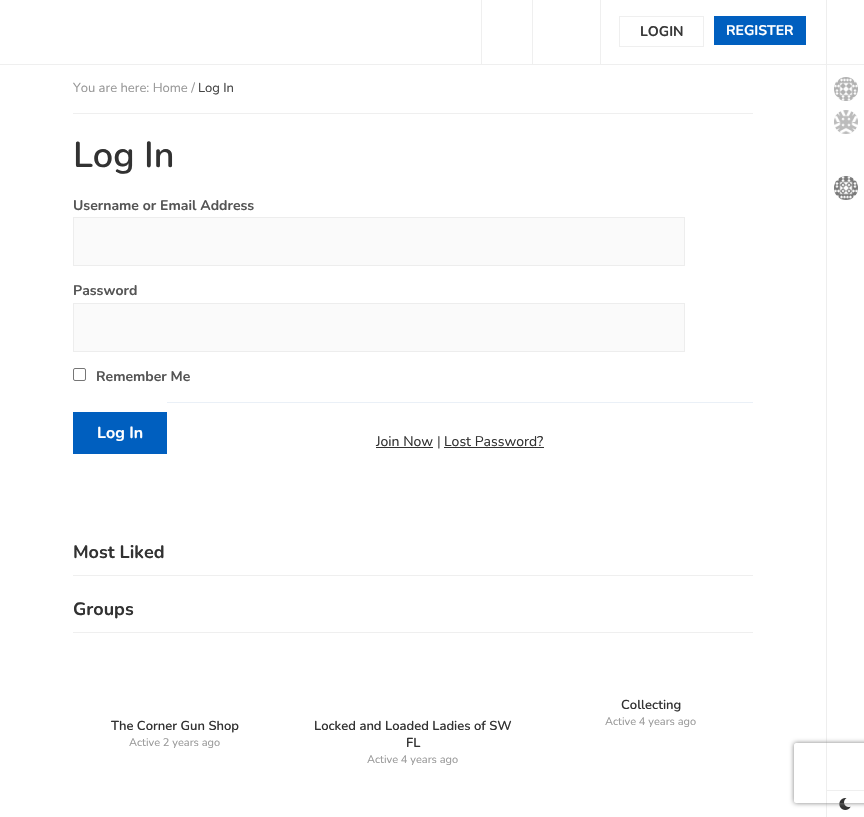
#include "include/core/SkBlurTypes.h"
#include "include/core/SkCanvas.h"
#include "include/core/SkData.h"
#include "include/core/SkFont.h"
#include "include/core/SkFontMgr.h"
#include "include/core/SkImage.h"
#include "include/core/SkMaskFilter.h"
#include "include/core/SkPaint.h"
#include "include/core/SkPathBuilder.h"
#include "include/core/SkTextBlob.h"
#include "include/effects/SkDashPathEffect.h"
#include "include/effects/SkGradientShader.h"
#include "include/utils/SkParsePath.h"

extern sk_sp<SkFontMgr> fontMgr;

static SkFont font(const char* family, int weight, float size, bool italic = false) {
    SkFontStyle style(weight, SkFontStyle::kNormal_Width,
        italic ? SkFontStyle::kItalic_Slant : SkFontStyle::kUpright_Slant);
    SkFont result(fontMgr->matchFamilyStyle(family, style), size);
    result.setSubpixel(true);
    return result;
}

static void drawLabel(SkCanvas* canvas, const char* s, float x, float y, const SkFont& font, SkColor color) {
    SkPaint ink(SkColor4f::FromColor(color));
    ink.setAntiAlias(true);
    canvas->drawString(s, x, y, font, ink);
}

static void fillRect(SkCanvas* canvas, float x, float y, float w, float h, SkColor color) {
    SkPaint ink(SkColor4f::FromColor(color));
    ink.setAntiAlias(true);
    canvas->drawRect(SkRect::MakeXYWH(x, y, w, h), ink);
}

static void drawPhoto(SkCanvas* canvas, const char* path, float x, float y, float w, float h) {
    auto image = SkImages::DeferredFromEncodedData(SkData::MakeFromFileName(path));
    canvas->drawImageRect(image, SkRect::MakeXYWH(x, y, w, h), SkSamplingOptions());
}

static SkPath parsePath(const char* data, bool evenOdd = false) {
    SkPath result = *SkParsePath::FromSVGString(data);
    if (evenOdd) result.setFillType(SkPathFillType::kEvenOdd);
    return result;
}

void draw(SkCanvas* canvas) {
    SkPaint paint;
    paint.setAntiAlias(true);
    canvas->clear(0xFFFFFFFF);
    fillRect(canvas, 0, 64, 826, 1, 0xFFEFEFEF);
    fillRect(canvas, 532, 0, 1, 64, 0xFFEFEFEF);
    fillRect(canvas, 481, 0, 1, 64, 0xFFEFEFEF);
    fillRect(canvas, 600, 0, 1, 64, 0xFFEFEFEF);
    paint.setStroke(true);
    paint.setStrokeWidth(1);
    paint.setColor(0xFFEFEFEF);
    canvas->drawRect(SkRect::MakeXYWH(619.5f, 16.5f, 84, 30), paint);
    SkFont font1 = font("Nunito", 700, 14);
    drawLabel(canvas, "LOGIN", 640, 36, font1, 0xFF383838);
    fillRect(canvas, 714, 16, 92, 29, 0xFF005FBF);
    drawLabel(canvas, "REGISTER", 726, 35, font1, 0xFFFFFFFF);
    fillRect(canvas, 826, 0, 1, 817, 0xFFEEEEEE);
    fillRect(canvas, 827, 64, 37, 1, 0xFFEFEFEF);
    drawPhoto(canvas, "assets/img1.png", 834, 77, 24, 24);
    drawPhoto(canvas, "assets/img2.png", 834, 110, 24, 24);
    drawPhoto(canvas, "assets/img3.png", 834, 176, 24, 24);
    fillRect(canvas, 827, 790, 37, 1, 0xFFEFEFEF);
    drawPhoto(canvas, "assets/img4.png", 839, 798, 12, 12);
    fillRect(canvas, 73, 113, 680, 1, 0xFFEFEFEF);
    SkFont font2 = font("Nunito", 400, 13);
    drawLabel(canvas, "You are here: Home /", 73, 92, font2, 0xFF989898);
    drawLabel(canvas, "Log In", 198, 92, font2, 0xFF444444);
    SkFont font3 = font("Nunito", 600, 36);
    drawLabel(canvas, "Log In", 73, 167, font3, 0xFF323232);
    drawLabel(canvas, "Username or Email Address", 73, 210, font1, 0xFF555555);
    paint.setStroke(false);
    paint.setColor(0xFFFAFAFA);
    canvas->drawRect(SkRect::MakeXYWH(73.5f, 217.5f, 611, 48), paint);
    paint.setStroke(true);
    paint.setColor(0xFFEDEDED);
    canvas->drawRect(SkRect::MakeXYWH(73.5f, 217.5f, 611, 48), paint);
    drawLabel(canvas, "Password", 73, 295, font1, 0xFF555555);
    paint.setStroke(false);
    paint.setColor(0xFFFAFAFA);
    canvas->drawRect(SkRect::MakeXYWH(73.5f, 303.5f, 611, 48), paint);
    paint.setStroke(true);
    paint.setColor(0xFFEDEDED);
    canvas->drawRect(SkRect::MakeXYWH(73.5f, 303.5f, 611, 48), paint);
    paint.setColor(0xFF767676);
    canvas->drawRoundRect(SkRect::MakeXYWH(73.5f, 368.5f, 12, 12), 1.5f, 1.5f, paint);
    drawLabel(canvas, "Remember Me", 96, 381, font1, 0xFF555555);
    fillRect(canvas, 73, 412, 94, 42, 0xFF005FBF);
    SkFont font4 = font("Nunito", 700, 16);
    drawLabel(canvas, "Log In", 97, 438, font4, 0xFFFFFFFF);
    fillRect(canvas, 167, 402, 586, 1, 0xFFEAF0F7);
    SkFont font5 = font("Nunito", 400, 14);
    drawLabel(canvas, "Join Now", 376, 446, font5, 0xFF323232);
    fillRect(canvas, 376, 447, 57, 1, 0xFF323232);
    drawLabel(canvas, "|", 437, 446, font5, 0xFF555555);
    drawLabel(canvas, "Lost Password?", 444, 446, font5, 0xFF323232);
    fillRect(canvas, 444, 447, 100, 1, 0xFF323232);
    fillRect(canvas, 73, 575, 680, 1, 0xFFEFEFEF);
    SkFont font6 = font("Nunito", 700, 18);
    drawLabel(canvas, "Most Liked", 73, 558, font6, 0xFF323232);
    fillRect(canvas, 73, 632, 680, 1, 0xFFEFEFEF);
    drawLabel(canvas, "Groups", 73, 615, font6, 0xFF323232);
    SkFont font7 = font("Nunito", 600, 13);
    drawLabel(canvas, "Collecting", 621, 709, font7, 0xFF323232);
    SkFont font8 = font("Nunito", 400, 11);
    drawLabel(canvas, "Active 4 years ago", 605, 725, font8, 0xFF989898);
    drawLabel(canvas, "The Corner Gun Shop", 111, 730, font7, 0xFF323232);
    drawLabel(canvas, "Active 2 years ago", 129, 746, font8, 0xFF989898);
    drawLabel(canvas, "Locked and Loaded Ladies of SW", 314, 730, font7, 0xFF323232);
    drawLabel(canvas, "FL", 406, 747, font7, 0xFF323232);
    drawLabel(canvas, "Active 4 years ago", 367, 763, font8, 0xFF989898);
    canvas->save();
    canvas->clipPath(parsePath("M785 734H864V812H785ZM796 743H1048C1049 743 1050 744 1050 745V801C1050 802 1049 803 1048 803H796C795 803 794 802 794 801V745C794 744 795 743 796 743Z", true), true);
    paint.setStroke(false);
    paint.setColor(0xFF808080);
    paint.setMaskFilter(SkMaskFilter::MakeBlur(kNormal_SkBlurStyle, 2.5f));
    canvas->drawRoundRect(SkRect::MakeXYWH(794, 743, 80, 60), 2, 2, paint);
    paint.setMaskFilter(nullptr);
    canvas->restore();
}
